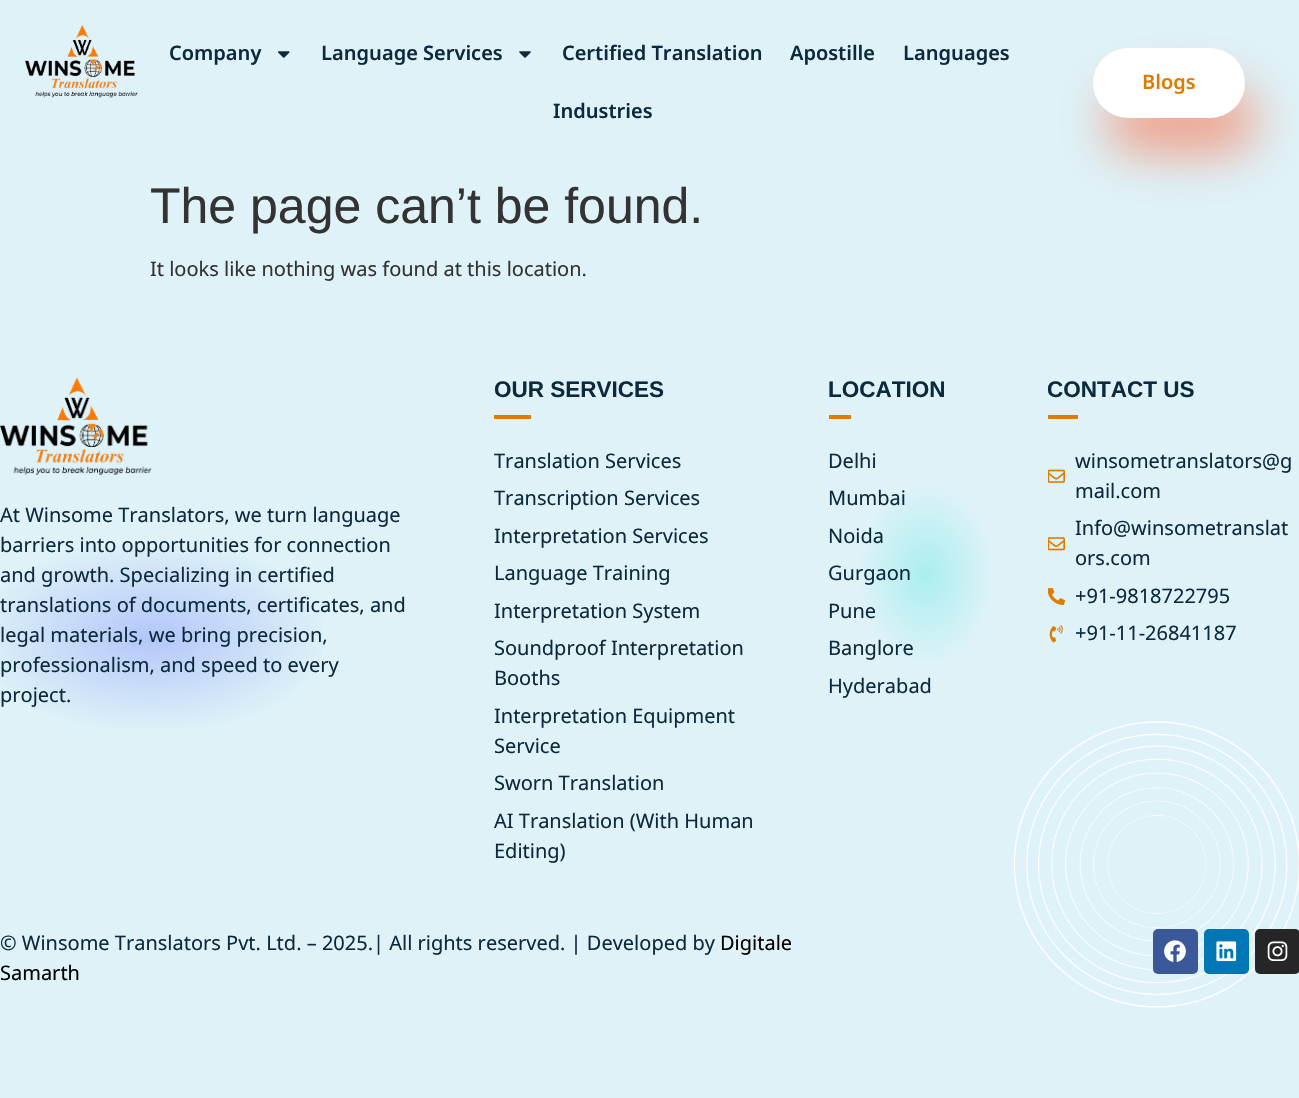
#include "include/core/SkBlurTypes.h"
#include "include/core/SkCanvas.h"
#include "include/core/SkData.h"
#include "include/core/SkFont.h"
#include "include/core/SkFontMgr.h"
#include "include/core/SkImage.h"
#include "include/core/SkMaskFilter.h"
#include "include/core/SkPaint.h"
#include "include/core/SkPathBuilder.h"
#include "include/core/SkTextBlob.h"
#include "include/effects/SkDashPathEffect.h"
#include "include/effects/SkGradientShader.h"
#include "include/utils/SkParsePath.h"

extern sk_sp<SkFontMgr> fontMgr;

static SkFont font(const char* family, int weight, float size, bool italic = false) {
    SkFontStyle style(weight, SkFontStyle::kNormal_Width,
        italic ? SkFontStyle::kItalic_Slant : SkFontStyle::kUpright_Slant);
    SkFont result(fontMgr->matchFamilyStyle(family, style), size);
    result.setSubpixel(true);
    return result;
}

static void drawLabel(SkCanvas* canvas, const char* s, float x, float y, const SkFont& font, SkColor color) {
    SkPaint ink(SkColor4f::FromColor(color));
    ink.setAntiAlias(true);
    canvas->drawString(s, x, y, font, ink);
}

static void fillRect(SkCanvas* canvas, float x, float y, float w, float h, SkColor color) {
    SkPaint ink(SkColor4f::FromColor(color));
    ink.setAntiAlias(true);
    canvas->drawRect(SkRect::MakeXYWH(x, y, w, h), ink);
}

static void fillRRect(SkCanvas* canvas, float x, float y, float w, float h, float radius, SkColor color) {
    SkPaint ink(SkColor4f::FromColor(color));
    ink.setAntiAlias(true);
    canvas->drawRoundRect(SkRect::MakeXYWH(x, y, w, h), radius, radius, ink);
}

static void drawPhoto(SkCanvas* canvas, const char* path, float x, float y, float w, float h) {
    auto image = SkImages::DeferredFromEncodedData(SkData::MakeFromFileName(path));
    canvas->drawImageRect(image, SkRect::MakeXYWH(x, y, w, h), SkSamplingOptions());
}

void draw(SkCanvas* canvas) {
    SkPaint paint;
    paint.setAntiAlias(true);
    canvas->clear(0xFFDEF2F8);
    drawPhoto(canvas, "assets/img1.png", 25, 25, 113, 73);
    SkFont font1 = font("Noto Sans Thai", 600, 20);
    drawLabel(canvas, "Company", 169, 60, font1, 0xFF0D2A3C);
    drawPhoto(canvas, "assets/img2.png", 278, 51, 12, 7);
    drawLabel(canvas, "Language Services", 321, 60, font1, 0xFF0D2A3C);
    drawPhoto(canvas, "assets/img3.png", 519, 51, 12, 7);
    drawLabel(canvas, "Certified Translation", 562, 60, font1, 0xFF0D2A3C);
    drawLabel(canvas, "Apostille", 790, 60, font1, 0xFF0D2A3C);
    drawLabel(canvas, "Languages", 903, 60, font1, 0xFF0D2A3C);
    drawLabel(canvas, "Industries", 553, 118, font1, 0xFF0D2A3C);
    paint.setColor(0x80FF5525);
    paint.setMaskFilter(SkMaskFilter::MakeBlur(kNormal_SkBlurStyle, 25));
    canvas->drawRoundRect(SkRect::MakeXYWH(1105, 85, 153, 70), 35, 35, paint);
    paint.setMaskFilter(nullptr);
    fillRRect(canvas, 1093, 48, 152, 70, 35, 0xFFFFFFFF);
    drawLabel(canvas, "Blogs", 1142, 89, font1, 0xFFDD7C00);
    SkFont font2 = font("Liberation Sans", 400, 50);
    drawLabel(canvas, "The page can’t be found.", 150, 223, font2, 0xFF333333);
    SkFont font3 = font("Noto Sans Thai", 400, 20);
    drawLabel(canvas, "It looks like nothing was found at this location.", 150, 276, font3, 0xFF333333);
    drawPhoto(canvas, "assets/img4.png", 1013, 721, 286, 287);
    drawPhoto(canvas, "assets/img5.png", 0, 377, 152, 98);
    {
        const SkColor colors[] = {0xFFB4C6F9, 0xFFDEF2F8};
        const float stops[] = {0, 0.5f};
        SkMatrix m = SkMatrix::Translate(151, 637).preScale(364, 194);
        paint.setShader(SkGradientShader::MakeRadial({0, 0}, 1, colors, stops, 2, SkTileMode::kClamp, 0, &m));
        paint.setAlpha(255);
    }
    canvas->drawRect(SkRect::MakeXYWH(0, 546, 323, 182), paint);
    drawLabel(canvas, "At Winsome Translators, we turn language", 0, 522, font3, 0xFF0D2A3C);
    drawLabel(canvas, "barriers into opportunities for connection", 0, 552, font3, 0xFF0D2A3C);
    drawLabel(canvas, "and growth. Specializing in certified", 0, 582, font3, 0xFF0D2A3C);
    drawLabel(canvas, "translations of documents, certificates, and", 0, 612, font3, 0xFF0D2A3C);
    drawLabel(canvas, "legal materials, we bring precision,", 0, 642, font3, 0xFF0D2A3C);
    drawLabel(canvas, "professionalism, and speed to every", 0, 672, font3, 0xFF0D2A3C);
    drawLabel(canvas, "project.", 0, 702, font3, 0xFF0D2A3C);
    SkFont font4 = font("Liberation Sans", 700, 22.5f);
    drawLabel(canvas, "OUR SERVICES", 494, 397, font4, 0xFF0D2A3C);
    fillRect(canvas, 494, 415, 37, 4, 0xFFDD7C00);
    drawLabel(canvas, "Translation Services", 494, 468, font3, 0xFF0D2A3C);
    drawLabel(canvas, "Transcription Services", 494, 505, font3, 0xFF0D2A3C);
    drawLabel(canvas, "Interpretation Services", 494, 543, font3, 0xFF0D2A3C);
    drawLabel(canvas, "Language Training", 494, 580, font3, 0xFF0D2A3C);
    drawLabel(canvas, "Interpretation System", 494, 618, font3, 0xFF0D2A3C);
    drawLabel(canvas, "Soundproof Interpretation", 494, 655, font3, 0xFF0D2A3C);
    drawLabel(canvas, "Booths", 494, 685, font3, 0xFF0D2A3C);
    drawLabel(canvas, "Interpretation Equipment", 494, 723, font3, 0xFF0D2A3C);
    drawLabel(canvas, "Service", 494, 753, font3, 0xFF0D2A3C);
    drawLabel(canvas, "Sworn Translation", 494, 790, font3, 0xFF0D2A3C);
    drawLabel(canvas, "AI Translation (With Human", 494, 828, font3, 0xFF0D2A3C);
    drawLabel(canvas, "Editing)", 494, 858, font3, 0xFF0D2A3C);
    drawLabel(canvas, "LOCATION", 828, 397, font4, 0xFF0D2A3C);
    fillRect(canvas, 829, 415, 22, 4, 0xFFDD7C00);
    {
        const SkColor colors[] = {0xFFAAEEF0, 0xFFDEF2F8};
        const float stops[] = {0, 0.5f};
        SkMatrix m = SkMatrix::Translate(926, 574).preScale(137, 180);
        paint.setShader(SkGradientShader::MakeRadial({0, 0}, 1, colors, stops, 2, SkTileMode::kClamp, 0, &m));
        paint.setAlpha(255);
    }
    canvas->drawRect(SkRect::MakeXYWH(861, 488, 130, 172), paint);
    drawLabel(canvas, "Delhi", 828, 468, font3, 0xFF0D2A3C);
    drawLabel(canvas, "Mumbai", 828, 505, font3, 0xFF0D2A3C);
    drawLabel(canvas, "Noida", 828, 543, font3, 0xFF0D2A3C);
    drawLabel(canvas, "Gurgaon", 828, 580, font3, 0xFF0D2A3C);
    drawLabel(canvas, "Pune", 828, 618, font3, 0xFF0D2A3C);
    drawLabel(canvas, "Banglore", 828, 655, font3, 0xFF0D2A3C);
    drawLabel(canvas, "Hyderabad", 828, 693, font3, 0xFF0D2A3C);
    drawLabel(canvas, "CONTACT US", 1047, 397, font4, 0xFF0D2A3C);
    fillRect(canvas, 1048, 415, 30, 4, 0xFFDD7C00);
    drawPhoto(canvas, "assets/img6.png", 1048, 469, 17, 14);
    drawLabel(canvas, "winsometranslators@g", 1075, 468, font3, 0xFF0D2A3C);
    drawLabel(canvas, "mail.com", 1075, 498, font3, 0xFF0D2A3C);
    drawPhoto(canvas, "assets/img7.png", 1048, 537, 17, 14);
    drawLabel(canvas, "Info@winsometranslat", 1075, 535, font3, 0xFF0D2A3C);
    drawLabel(canvas, "ors.com", 1075, 565, font3, 0xFF0D2A3C);
    drawPhoto(canvas, "assets/img8.png", 1048, 588, 17, 17);
    drawLabel(canvas, "+91-9818722795", 1075, 603, font3, 0xFF0D2A3C);
    drawPhoto(canvas, "assets/img9.png", 1049, 625, 14, 18);
    drawLabel(canvas, "+91-11-26841187", 1075, 640, font3, 0xFF0D2A3C);
    drawLabel(canvas, "© Winsome Translators Pvt. Ltd. – 2025.| All rights reserved. | Developed by", 0, 950, font3, 0xFF0D2A3C);
    drawLabel(canvas, "Digitale", 720, 950, font3, 0xFF000000);
    drawLabel(canvas, "Samarth", 0, 980, font3, 0xFF000000);
    fillRRect(canvas, 1153, 929, 45, 45, 5, 0xFF3B5998);
    drawPhoto(canvas, "assets/img10.png", 1164, 940, 22, 22);
    fillRRect(canvas, 1204, 929, 45, 45, 5, 0xFF0077B5);
    drawPhoto(canvas, "assets/img11.png", 1216, 941, 21, 21);
    fillRRect(canvas, 1255, 929, 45, 45, 5, 0xFF262626);
    drawPhoto(canvas, "assets/img12.png", 1267, 941, 21, 20);
}
